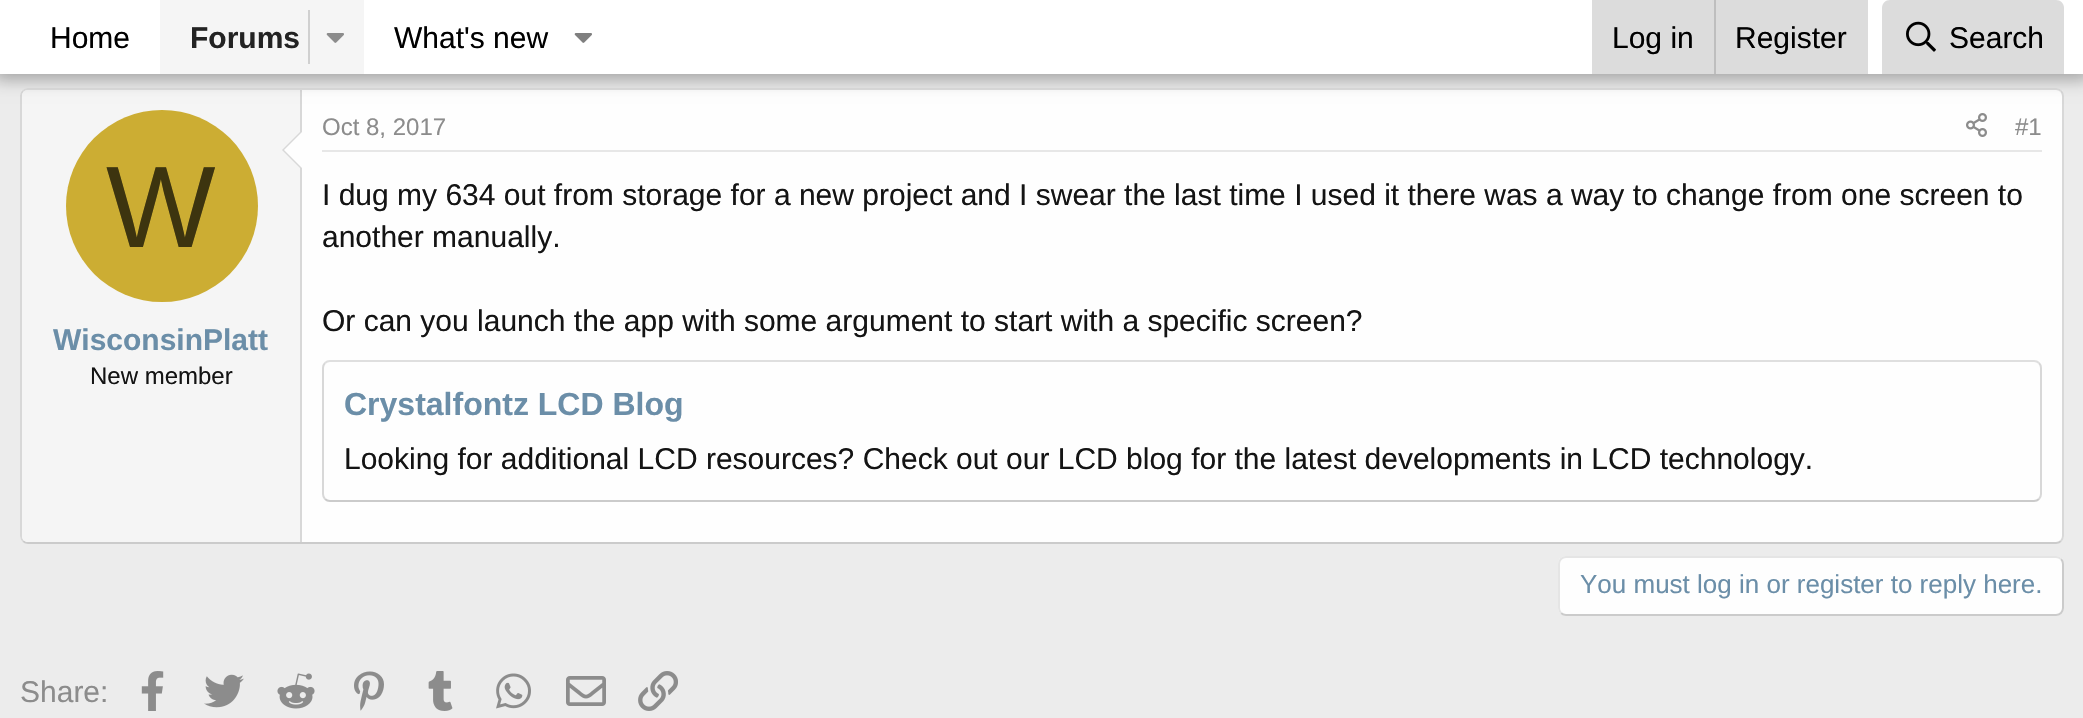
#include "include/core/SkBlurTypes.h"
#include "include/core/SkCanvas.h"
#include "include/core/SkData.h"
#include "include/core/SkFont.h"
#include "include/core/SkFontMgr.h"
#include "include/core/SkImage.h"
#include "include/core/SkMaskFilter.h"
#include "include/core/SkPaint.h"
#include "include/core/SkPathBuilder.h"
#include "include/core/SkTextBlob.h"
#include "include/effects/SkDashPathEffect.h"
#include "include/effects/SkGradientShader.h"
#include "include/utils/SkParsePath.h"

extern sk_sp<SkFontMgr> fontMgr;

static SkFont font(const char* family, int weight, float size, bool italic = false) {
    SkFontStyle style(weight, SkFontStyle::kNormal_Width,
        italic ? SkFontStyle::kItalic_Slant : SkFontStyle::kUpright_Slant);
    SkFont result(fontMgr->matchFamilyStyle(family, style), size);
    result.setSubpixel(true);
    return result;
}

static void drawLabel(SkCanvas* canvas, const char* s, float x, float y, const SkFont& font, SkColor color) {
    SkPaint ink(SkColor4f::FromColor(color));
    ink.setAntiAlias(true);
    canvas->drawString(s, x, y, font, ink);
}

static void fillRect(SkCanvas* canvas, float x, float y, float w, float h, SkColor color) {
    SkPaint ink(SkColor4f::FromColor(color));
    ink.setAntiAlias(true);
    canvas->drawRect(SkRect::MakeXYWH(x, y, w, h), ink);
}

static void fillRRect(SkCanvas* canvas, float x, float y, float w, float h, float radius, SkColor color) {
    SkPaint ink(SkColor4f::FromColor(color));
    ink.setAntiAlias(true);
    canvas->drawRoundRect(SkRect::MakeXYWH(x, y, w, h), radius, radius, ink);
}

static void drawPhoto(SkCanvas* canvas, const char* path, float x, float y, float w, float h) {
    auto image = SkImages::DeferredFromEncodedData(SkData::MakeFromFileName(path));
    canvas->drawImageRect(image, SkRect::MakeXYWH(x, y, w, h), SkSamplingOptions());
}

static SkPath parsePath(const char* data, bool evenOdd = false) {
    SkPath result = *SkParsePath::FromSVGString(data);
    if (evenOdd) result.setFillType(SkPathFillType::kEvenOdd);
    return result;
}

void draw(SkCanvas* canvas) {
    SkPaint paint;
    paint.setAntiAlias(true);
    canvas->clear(0xFFECECEC);
    fillRRect(canvas, 20, 88, 2044, 456, 8, 0xFFFEFEFE);
    paint.setStroke(true);
    paint.setStrokeWidth(2);
    paint.setColor(0xFFDFDFDF);
    canvas->drawPath(parsePath("M23 91C24.5 89.5 26 89 28 89H2056C2058 89 2059.5 89.5 2061 91"), paint);
    paint.setColor(0xFFD8D8D8);
    canvas->drawPath(parsePath("M2061 91C2062.5 92.5 2063 94 2063 96V536C2063 538 2062.5 539.5 2061 541"), paint);
    paint.setColor(0xFFCBCBCB);
    canvas->drawPath(parsePath("M2061 541C2059.5 542.5 2058 543 2056 543H28C26 543 24.5 542.5 23 541"), paint);
    paint.setColor(0xFFD8D8D8);
    canvas->drawPath(parsePath("M23 541C21.5 539.5 21 538 21 536V96C21 94 21.5 92.5 23 91"), paint);
    paint.setStroke(false);
    paint.setColor(0xFFF5F5F5);
    canvas->drawPath(parsePath("M28 90H302V542H28C24.5 542 22 539.5 22 536V96C22 92.5 24.5 90 28 90Z"), paint);
    fillRect(canvas, 300, 90, 2, 452, 0xFFD8D8D8);
    paint.setColor(0x4D000000);
    paint.setMaskFilter(SkMaskFilter::MakeBlur(kNormal_SkBlurStyle, 8));
    canvas->drawRect(SkRect::MakeXYWH(-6, -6, 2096, 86), paint);
    paint.setMaskFilter(nullptr);
    fillRect(canvas, 0, 0, 2083, 74, 0xFFFFFFFF);
    SkFont font1 = font("Liberation Sans", 400, 30);
    drawLabel(canvas, "Home", 50, 48, font1, 0xFF000000);
    fillRect(canvas, 160, 0, 204, 74, 0xFFF5F5F5);
    SkFont font2 = font("Liberation Sans", 700, 30);
    drawLabel(canvas, "Forums", 190, 48, font2, 0xFF232323);
    fillRect(canvas, 308, 10, 2, 54, 0xFFD0D0D0);
    drawPhoto(canvas, "assets/img1.png", 326, 33, 18, 10);
    drawLabel(canvas, "What's new", 394, 48, font1, 0xFF000000);
    drawPhoto(canvas, "assets/img2.png", 574, 33, 18, 10);
    fillRect(canvas, 1592, 0, 276, 74, 0xFFDCDCDC);
    drawLabel(canvas, "Log in", 1612, 48, font1, 0xFF000000);
    fillRect(canvas, 1714, 0, 2, 74, 0xFFBEBEBE);
    drawLabel(canvas, "Register", 1735, 48, font1, 0xFF000000);
    paint.setColor(0xFFDCDCDC);
    canvas->drawPath(parsePath("M1890 0H2056C2060.5 0 2064 3.5 2064 8V74H1882V8C1882 3.5 1885.5 0 1890 0Z"), paint);
    drawPhoto(canvas, "assets/img3.png", 1906, 21, 30, 31);
    drawLabel(canvas, "Search", 1949, 48, font1, 0xFF000000);
    paint.setColor(0xFFD8D8D8);
    canvas->drawPath(parsePath("M302 130V170L282 150Z"), paint);
    paint.setColor(0xFFFEFEFE);
    canvas->drawPath(parsePath("M302 132V168L284 150Z"), paint);
    paint.setColor(0xFFCCAD33);
    canvas->drawCircle(162, 206, 96, paint);
    SkFont font3 = font("Liberation Sans", 400, 116);
    drawLabel(canvas, "W", 106, 247, font3, 0xFF3D340F);
    drawLabel(canvas, "WisconsinPlatt", 53, 350, font2, 0xFF6B8EA8);
    SkFont font4 = font("Liberation Sans", 400, 24);
    drawLabel(canvas, "New member", 90, 384, font4, 0xFF141414);
    fillRect(canvas, 322, 150, 1720, 2, 0xFFE7E7E7);
    drawLabel(canvas, "Oct 8, 2017", 322, 135, font4, 0xFF8C8C8C);
    drawPhoto(canvas, "assets/img4.png", 1966, 113, 21, 24);
    drawLabel(canvas, "#1", 2015, 135, font4, 0xFF8C8C8C);
    drawLabel(canvas, "I dug my 634 out from storage for a new project and I swear the last time I used it there was a way to change from one screen to", 322, 205, font1, 0xFF141414);
    drawLabel(canvas, "another manually.", 322, 247, font1, 0xFF141414);
    drawLabel(canvas, "Or can you launch the app with some argument to start with a specific screen?", 322, 331, font1, 0xFF141414);
    paint.setStroke(true);
    paint.setColor(0xFFDFDFDF);
    canvas->drawPath(parsePath("M325 363C326.5 361.5 328 361 330 361H2034C2036 361 2037.5 361.5 2039 363"), paint);
    paint.setColor(0xFFD8D8D8);
    canvas->drawPath(parsePath("M2039 363C2040.5 364.5 2041 366 2041 368V494C2041 496 2040.5 497.5 2039 499"), paint);
    paint.setColor(0xFFCBCBCB);
    canvas->drawPath(parsePath("M2039 499C2037.5 500.5 2036 501 2034 501H330C328 501 326.5 500.5 325 499"), paint);
    paint.setColor(0xFFD8D8D8);
    canvas->drawPath(parsePath("M325 499C323.5 497.5 323 496 323 494V368C323 366 323.5 364.5 325 363"), paint);
    SkFont font5 = font("Liberation Sans", 700, 32);
    drawLabel(canvas, "Crystalfontz LCD Blog", 344, 415, font5, 0xFF6B8EA8);
    drawLabel(canvas, "Looking for additional LCD resources? Check out our LCD blog for the latest developments in LCD technology.", 344, 469, font1, 0xFF141414);
    fillRRect(canvas, 1558, 556, 506, 60, 8, 0xFFFEFEFE);
    paint.setColor(0xFFCBCBCB);
    canvas->drawPath(parsePath("M2061 559C2062.5 560.5 2063 562 2063 564V608C2063 610 2062.5 611.5 2061 613C2059.5 614.5 2058 615 2056 615H1566C1564 615 1562.5 614.5 1561 613"), paint);
    paint.setColor(0xFFE5E5E5);
    canvas->drawPath(parsePath("M1561 613C1559.5 611.5 1559 610 1559 608V564C1559 562 1559.5 560.5 1561 559C1562.5 557.5 1564 557 1566 557H2056C2058 557 2059.5 557.5 2061 559"), paint);
    SkFont font6 = font("Liberation Sans", 400, 26);
    drawLabel(canvas, "You must log in or register to reply here.", 1580, 593, font6, 0xFF6B8EA8);
    drawLabel(canvas, "Share:", 20, 702, font1, 0xFF8C8C8C);
    drawPhoto(canvas, "assets/img5.png", 141, 671, 23, 40);
    drawPhoto(canvas, "assets/img6.png", 204, 674, 40, 34);
    drawPhoto(canvas, "assets/img7.png", 277, 673, 38, 36);
    drawPhoto(canvas, "assets/img8.png", 354, 671, 30, 40);
    drawPhoto(canvas, "assets/img9.png", 428, 671, 25, 40);
    drawPhoto(canvas, "assets/img10.png", 496, 673, 35, 36);
    drawPhoto(canvas, "assets/img11.png", 566, 676, 40, 30);
    drawPhoto(canvas, "assets/img12.png", 638, 671, 40, 40);
}
